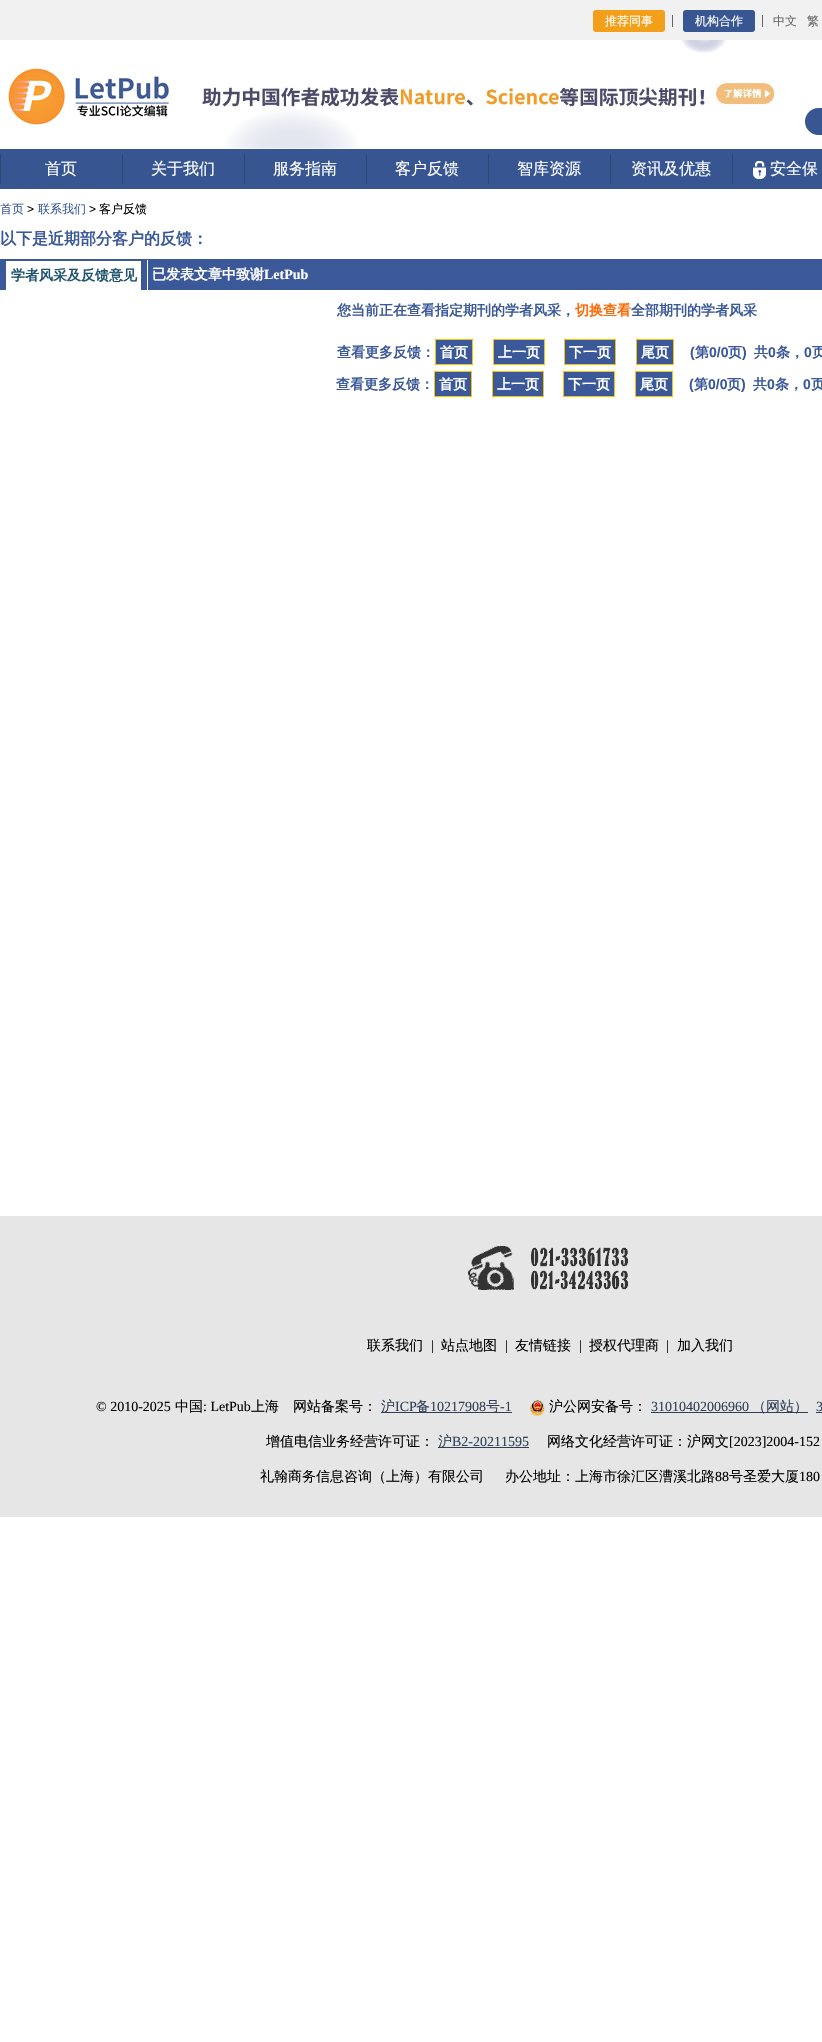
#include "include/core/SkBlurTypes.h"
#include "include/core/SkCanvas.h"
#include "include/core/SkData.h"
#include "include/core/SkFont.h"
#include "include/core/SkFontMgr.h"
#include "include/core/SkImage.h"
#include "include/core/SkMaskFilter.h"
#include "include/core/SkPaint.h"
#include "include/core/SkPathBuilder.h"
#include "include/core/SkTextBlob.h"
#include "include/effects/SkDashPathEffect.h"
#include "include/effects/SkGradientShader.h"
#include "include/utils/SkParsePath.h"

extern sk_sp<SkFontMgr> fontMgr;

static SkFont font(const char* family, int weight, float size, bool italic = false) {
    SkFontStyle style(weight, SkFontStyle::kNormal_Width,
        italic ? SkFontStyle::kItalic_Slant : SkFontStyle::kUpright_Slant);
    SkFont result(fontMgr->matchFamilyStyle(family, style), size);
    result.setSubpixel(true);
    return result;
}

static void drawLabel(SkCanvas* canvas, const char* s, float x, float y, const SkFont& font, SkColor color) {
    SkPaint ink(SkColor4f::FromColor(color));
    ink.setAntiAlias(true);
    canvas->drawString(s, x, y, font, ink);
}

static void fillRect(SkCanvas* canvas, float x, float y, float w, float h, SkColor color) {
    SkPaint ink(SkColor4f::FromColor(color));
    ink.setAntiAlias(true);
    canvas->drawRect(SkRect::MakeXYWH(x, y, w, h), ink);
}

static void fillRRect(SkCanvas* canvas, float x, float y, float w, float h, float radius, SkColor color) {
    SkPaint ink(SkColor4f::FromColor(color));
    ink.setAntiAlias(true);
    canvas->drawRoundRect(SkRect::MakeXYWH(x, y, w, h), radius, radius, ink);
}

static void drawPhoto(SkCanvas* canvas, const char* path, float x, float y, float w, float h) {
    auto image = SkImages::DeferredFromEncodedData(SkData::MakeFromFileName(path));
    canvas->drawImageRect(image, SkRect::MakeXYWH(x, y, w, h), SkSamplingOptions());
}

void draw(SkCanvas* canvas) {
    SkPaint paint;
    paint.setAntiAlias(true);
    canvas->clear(0xFFFFFFFF);
    fillRect(canvas, 0, 0, 822, 40, 0xFFF1F1F1);
    fillRRect(canvas, 593, 10, 72, 22, 3, 0xFFF39F19);
    SkFont font1 = font("WenQuanYi Zen Hei", 500, 12);
    drawLabel(canvas, "推荐同事", 605, 25, font1, 0xFFFFFFFF);
    fillRect(canvas, 672, 15, 1, 12, 0xFF666666);
    fillRRect(canvas, 683, 10, 72, 22, 3, 0xFF385692);
    drawLabel(canvas, "机构合作", 695, 25, font1, 0xFFFFFFFF);
    fillRect(canvas, 762, 15, 1, 12, 0xFF666666);
    drawLabel(canvas, "中文", 773, 25, font1, 0xFF666666);
    drawLabel(canvas, "繁", 807, 25, font1, 0xFF666666);
    drawPhoto(canvas, "assets/img1.png", 8, 68, 161, 57);
    drawPhoto(canvas, "assets/img2.png", 202, 40, 573, 109);
    fillRRect(canvas, 805, 108, 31, 27, 13.5f, 0xFF385692);
    fillRect(canvas, 0, 149, 822, 40, 0xFF375691);
    fillRect(canvas, 0, 154, 1, 30, 0xFF2E4678);
    SkFont font2 = font("WenQuanYi Zen Hei", 500, 16);
    drawLabel(canvas, "首页", 45, 174, font2, 0xFFFFFFFF);
    fillRect(canvas, 122, 154, 1, 30, 0xFF2E4678);
    drawLabel(canvas, "关于我们", 151, 174, font2, 0xFFFFFFFF);
    fillRect(canvas, 244, 154, 1, 30, 0xFF2E4678);
    drawLabel(canvas, "服务指南", 273, 174, font2, 0xFFFFFFFF);
    fillRect(canvas, 366, 154, 1, 30, 0xFF2E4678);
    drawLabel(canvas, "客户反馈", 395, 174, font2, 0xFFFFFFFF);
    fillRect(canvas, 488, 154, 1, 30, 0xFF2E4678);
    drawLabel(canvas, "智库资源", 517, 174, font2, 0xFFFFFFFF);
    fillRect(canvas, 610, 154, 1, 30, 0xFF2E4678);
    drawLabel(canvas, "资讯及优惠", 631, 174, font2, 0xFFFFFFFF);
    fillRect(canvas, 732, 154, 1, 30, 0xFF2E4678);
    drawPhoto(canvas, "assets/img3.png", 753, 161, 13, 18);
    drawLabel(canvas, "安全保", 770, 174, font2, 0xFFFFFFFF);
    drawLabel(canvas, "首页", 0, 213, font1, 0xFF3B5998);
    SkFont font3 = font("Liberation Sans", 400, 12);
    drawLabel(canvas, ">", 27, 213, font3, 0xFF000000);
    drawLabel(canvas, "联系我们", 38, 213, font1, 0xFF3B5998);
    drawLabel(canvas, ">", 89, 213, font3, 0xFF000000);
    drawLabel(canvas, "客户反馈", 99, 213, font1, 0xFF000000);
    fillRect(canvas, 0, 259, 822, 31, 0xFF3B5998);
    SkFont font4 = font("WenQuanYi Zen Hei", 700, 16);
    drawLabel(canvas, "以下是近期部分客户的反馈：", 0, 244, font4, 0xFF3B5998);
    fillRect(canvas, 6, 261, 135, 29, 0xFFFFFFFF);
    SkFont font5 = font("WenQuanYi Zen Hei", 700, 14);
    drawLabel(canvas, "学者风采及反馈意见", 11, 280, font5, 0xFF1F536E);
    fillRect(canvas, 147, 260, 1, 30, 0xFFFFFFFF);
    drawLabel(canvas, "已发表文章中致谢", 152, 279, font5, 0xFFFFFFFF);
    SkFont font6 = font("Liberation Serif", 700, 14);
    drawLabel(canvas, "LetPub", 264, 279, font6, 0xFFFFFFFF);
    drawLabel(canvas, "您当前正在查看指定期刊的学者风采，", 337, 315, font5, 0xFF3B5998);
    drawLabel(canvas, "切换查看", 575, 315, font5, 0xFFFF6600);
    drawLabel(canvas, "全部期刊的学者风采", 631, 315, font5, 0xFF3B5998);
    drawLabel(canvas, "查看更多反馈：", 337, 357, font5, 0xFF3B5998);
    paint.setColor(0xFF3B5998);
    canvas->drawRect(SkRect::MakeXYWH(435.5f, 339.5f, 37, 25), paint);
    paint.setStroke(true);
    paint.setStrokeWidth(1);
    paint.setColor(0xFFFFC000);
    canvas->drawRect(SkRect::MakeXYWH(435.5f, 339.5f, 37, 25), paint);
    drawLabel(canvas, "首页", 440, 357, font5, 0xFFFFFFFF);
    paint.setStroke(false);
    paint.setColor(0xFF3B5998);
    canvas->drawRect(SkRect::MakeXYWH(493.5f, 339.5f, 51, 25), paint);
    paint.setStroke(true);
    paint.setColor(0xFFFFC000);
    canvas->drawRect(SkRect::MakeXYWH(493.5f, 339.5f, 51, 25), paint);
    drawLabel(canvas, "上一页", 498, 357, font5, 0xFFFFFFFF);
    paint.setStroke(false);
    paint.setColor(0xFF3B5998);
    canvas->drawRect(SkRect::MakeXYWH(564.5f, 339.5f, 51, 25), paint);
    paint.setStroke(true);
    paint.setColor(0xFFFFC000);
    canvas->drawRect(SkRect::MakeXYWH(564.5f, 339.5f, 51, 25), paint);
    drawLabel(canvas, "下一页", 569, 357, font5, 0xFFFFFFFF);
    paint.setStroke(false);
    paint.setColor(0xFF3B5998);
    canvas->drawRect(SkRect::MakeXYWH(636.5f, 339.5f, 37, 25), paint);
    paint.setStroke(true);
    paint.setColor(0xFFFFC000);
    canvas->drawRect(SkRect::MakeXYWH(636.5f, 339.5f, 37, 25), paint);
    drawLabel(canvas, "尾页", 641, 357, font5, 0xFFFFFFFF);
    SkFont font7 = font("Liberation Sans", 700, 14);
    drawLabel(canvas, "(", 690, 357, font7, 0xFF3B5998);
    drawLabel(canvas, "第", 695, 357, font5, 0xFF3B5998);
    drawLabel(canvas, "0/0", 709, 357, font7, 0xFF3B5998);
    drawLabel(canvas, "页", 728, 357, font5, 0xFF3B5998);
    drawLabel(canvas, ")", 742, 357, font7, 0xFF3B5998);
    drawLabel(canvas, "共", 754, 357, font5, 0xFF3B5998);
    drawLabel(canvas, "0", 768, 357, font7, 0xFF3B5998);
    drawLabel(canvas, "条，", 776, 357, font5, 0xFF3B5998);
    drawLabel(canvas, "0", 804, 357, font7, 0xFF3B5998);
    drawLabel(canvas, "页", 812, 357, font5, 0xFF3B5998);
    drawLabel(canvas, "查看更多反馈：", 336, 389, font5, 0xFF3B5998);
    paint.setStroke(false);
    paint.setColor(0xFF3B5998);
    canvas->drawRect(SkRect::MakeXYWH(434.5f, 371.5f, 37, 25), paint);
    paint.setStroke(true);
    paint.setColor(0xFFFFC000);
    canvas->drawRect(SkRect::MakeXYWH(434.5f, 371.5f, 37, 25), paint);
    drawLabel(canvas, "首页", 439, 389, font5, 0xFFFFFFFF);
    paint.setStroke(false);
    paint.setColor(0xFF3B5998);
    canvas->drawRect(SkRect::MakeXYWH(492.5f, 371.5f, 51, 25), paint);
    paint.setStroke(true);
    paint.setColor(0xFFFFC000);
    canvas->drawRect(SkRect::MakeXYWH(492.5f, 371.5f, 51, 25), paint);
    drawLabel(canvas, "上一页", 497, 389, font5, 0xFFFFFFFF);
    paint.setStroke(false);
    paint.setColor(0xFF3B5998);
    canvas->drawRect(SkRect::MakeXYWH(563.5f, 371.5f, 51, 25), paint);
    paint.setStroke(true);
    paint.setColor(0xFFFFC000);
    canvas->drawRect(SkRect::MakeXYWH(563.5f, 371.5f, 51, 25), paint);
    drawLabel(canvas, "下一页", 568, 389, font5, 0xFFFFFFFF);
    paint.setStroke(false);
    paint.setColor(0xFF3B5998);
    canvas->drawRect(SkRect::MakeXYWH(635.5f, 371.5f, 37, 25), paint);
    paint.setStroke(true);
    paint.setColor(0xFFFFC000);
    canvas->drawRect(SkRect::MakeXYWH(635.5f, 371.5f, 37, 25), paint);
    drawLabel(canvas, "尾页", 640, 389, font5, 0xFFFFFFFF);
    drawLabel(canvas, "(", 689, 389, font7, 0xFF3B5998);
    drawLabel(canvas, "第", 694, 389, font5, 0xFF3B5998);
    drawLabel(canvas, "0/0", 708, 389, font7, 0xFF3B5998);
    drawLabel(canvas, "页", 727, 389, font5, 0xFF3B5998);
    drawLabel(canvas, ")", 741, 389, font7, 0xFF3B5998);
    drawLabel(canvas, "共", 753, 389, font5, 0xFF3B5998);
    drawLabel(canvas, "0", 767, 389, font7, 0xFF3B5998);
    drawLabel(canvas, "条，", 775, 389, font5, 0xFF3B5998);
    drawLabel(canvas, "0", 803, 389, font7, 0xFF3B5998);
    drawLabel(canvas, "页", 811, 389, font5, 0xFF3B5998);
    fillRect(canvas, 0, 1216, 822, 301, 0xFFE6E6E6);
    drawPhoto(canvas, "assets/img4.png", 468, 1246, 160, 44);
    SkFont font8 = font("WenQuanYi Zen Hei", 500, 14);
    drawLabel(canvas, "联系我们", 367, 1350, font8, 0xFF000000);
    SkFont font9 = font("Liberation Serif", 400, 14);
    drawLabel(canvas, "|", 431, 1350, font9, 0xFF000000);
    drawLabel(canvas, "站点地图", 441, 1350, font8, 0xFF000000);
    drawLabel(canvas, "|", 505, 1350, font9, 0xFF000000);
    drawLabel(canvas, "友情链接", 515, 1350, font8, 0xFF000000);
    drawLabel(canvas, "|", 579, 1350, font9, 0xFF000000);
    drawLabel(canvas, "授权代理商", 589, 1350, font8, 0xFF000000);
    drawLabel(canvas, "|", 666, 1350, font9, 0xFF000000);
    drawLabel(canvas, "加入我们", 677, 1350, font8, 0xFF000000);
    drawLabel(canvas, "© 2010-2025", 96, 1411, font9, 0xFF000000);
    drawLabel(canvas, "中国", 175, 1411, font8, 0xFF000000);
    drawLabel(canvas, ": LetPub", 203, 1411, font9, 0xFF000000);
    drawLabel(canvas, "上海", 251, 1411, font8, 0xFF000000);
    drawLabel(canvas, "网站备案号：", 293, 1411, font8, 0xFF000000);
    fillRect(canvas, 381, 1412, 131, 1, 0xFF2F4056);
    drawLabel(canvas, "沪", 381, 1411, font8, 0xFF2F4056);
    drawLabel(canvas, "ICP", 395, 1411, font9, 0xFF2F4056);
    drawLabel(canvas, "备", 416, 1411, font8, 0xFF2F4056);
    drawLabel(canvas, "10217908", 430, 1411, font9, 0xFF2F4056);
    drawLabel(canvas, "号", 486, 1411, font8, 0xFF2F4056);
    drawLabel(canvas, "-1", 500, 1411, font9, 0xFF2F4056);
    drawPhoto(canvas, "assets/img5.png", 530, 1400, 15, 16);
    drawLabel(canvas, "沪公网安备号：", 549, 1411, font8, 0xFF000000);
    drawLabel(canvas, "31010402006960", 651, 1411, font9, 0xFF2F4056);
    fillRect(canvas, 651, 1412, 157, 1, 0xFF2F4056);
    drawLabel(canvas, "（网站）", 752, 1411, font8, 0xFF2F4056);
    drawLabel(canvas, "3", 816, 1411, font9, 0xFF2F4056);
    fillRect(canvas, 816, 1412, 6, 1, 0xFF2F4056);
    drawLabel(canvas, "增值电信业务经营许可证：", 266, 1446, font8, 0xFF000000);
    fillRect(canvas, 438, 1447, 91, 1, 0xFF2F4056);
    drawLabel(canvas, "沪", 438, 1446, font8, 0xFF2F4056);
    drawLabel(canvas, "B2-20211595", 452, 1446, font9, 0xFF2F4056);
    drawLabel(canvas, "网络文化经营许可证：沪网文", 547, 1446, font8, 0xFF000000);
    drawLabel(canvas, "[2023]2004-152", 729, 1446, font9, 0xFF000000);
    drawLabel(canvas, "礼翰商务信息咨询（上海）有限公司", 260, 1481, font8, 0xFF000000);
    drawLabel(canvas, "办公地址：上海市徐汇区漕溪北路", 505, 1481, font8, 0xFF000000);
    drawLabel(canvas, "88", 715, 1481, font9, 0xFF000000);
    drawLabel(canvas, "号圣爱大厦", 729, 1481, font8, 0xFF000000);
    drawLabel(canvas, "180", 799, 1481, font9, 0xFF000000);
}
